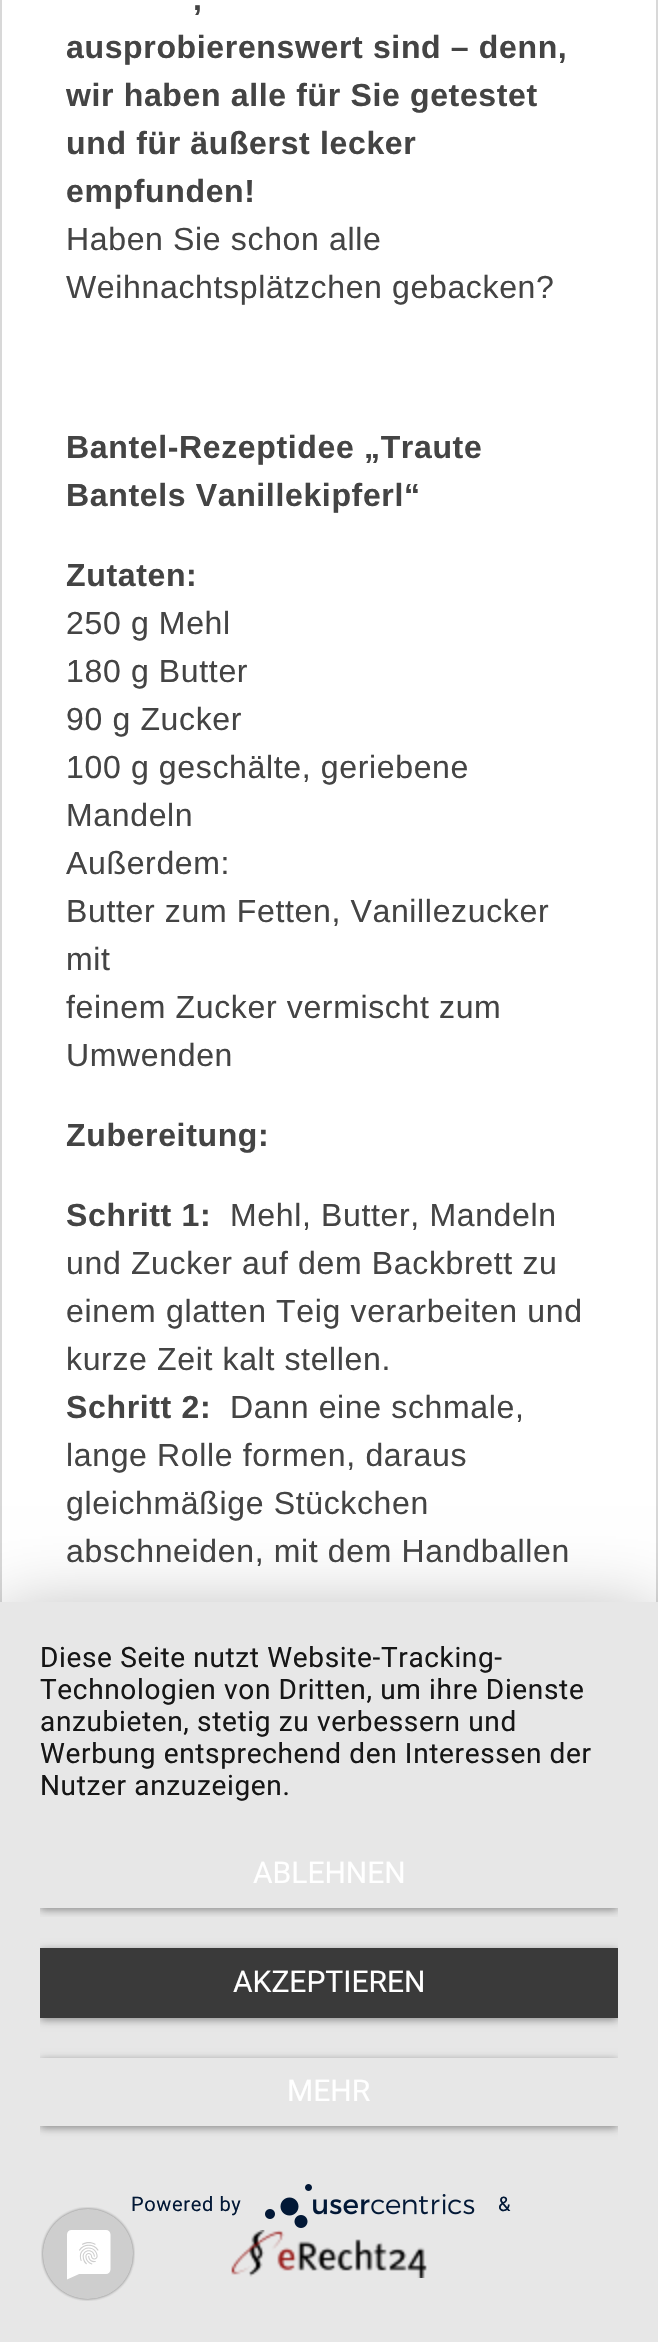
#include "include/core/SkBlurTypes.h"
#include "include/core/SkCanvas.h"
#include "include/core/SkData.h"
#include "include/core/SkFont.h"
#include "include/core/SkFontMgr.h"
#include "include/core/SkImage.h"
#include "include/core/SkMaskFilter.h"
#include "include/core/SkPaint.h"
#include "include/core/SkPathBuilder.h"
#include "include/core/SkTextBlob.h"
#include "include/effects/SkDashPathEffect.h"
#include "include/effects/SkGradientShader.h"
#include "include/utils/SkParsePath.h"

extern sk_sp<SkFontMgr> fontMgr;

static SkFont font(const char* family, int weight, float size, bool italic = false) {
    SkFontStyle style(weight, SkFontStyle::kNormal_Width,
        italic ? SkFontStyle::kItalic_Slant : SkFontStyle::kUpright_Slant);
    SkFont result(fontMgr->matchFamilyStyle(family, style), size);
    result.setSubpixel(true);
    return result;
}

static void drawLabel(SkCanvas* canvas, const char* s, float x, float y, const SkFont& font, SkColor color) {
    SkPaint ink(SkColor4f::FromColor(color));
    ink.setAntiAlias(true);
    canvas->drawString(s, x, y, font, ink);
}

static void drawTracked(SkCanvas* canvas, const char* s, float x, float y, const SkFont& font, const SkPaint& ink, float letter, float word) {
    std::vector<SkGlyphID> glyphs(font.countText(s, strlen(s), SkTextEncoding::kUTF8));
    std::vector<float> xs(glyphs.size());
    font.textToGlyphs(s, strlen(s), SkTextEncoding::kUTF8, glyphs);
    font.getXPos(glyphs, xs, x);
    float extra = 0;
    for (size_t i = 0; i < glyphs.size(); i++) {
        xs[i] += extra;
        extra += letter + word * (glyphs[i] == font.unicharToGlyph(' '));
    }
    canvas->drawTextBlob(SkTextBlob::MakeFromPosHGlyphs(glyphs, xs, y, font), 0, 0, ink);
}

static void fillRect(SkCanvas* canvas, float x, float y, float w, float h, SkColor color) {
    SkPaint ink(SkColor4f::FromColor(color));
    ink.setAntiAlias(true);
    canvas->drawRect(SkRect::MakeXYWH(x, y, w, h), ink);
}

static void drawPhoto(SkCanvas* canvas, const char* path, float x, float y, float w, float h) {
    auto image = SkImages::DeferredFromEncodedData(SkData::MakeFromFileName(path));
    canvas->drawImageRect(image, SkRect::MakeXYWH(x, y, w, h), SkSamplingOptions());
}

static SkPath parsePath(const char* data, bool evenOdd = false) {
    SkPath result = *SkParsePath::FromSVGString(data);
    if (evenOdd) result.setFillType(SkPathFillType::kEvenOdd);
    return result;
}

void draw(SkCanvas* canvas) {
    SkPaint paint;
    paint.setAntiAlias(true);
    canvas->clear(0xFFFFFFFF);
    paint.setStroke(true);
    paint.setStrokeWidth(2);
    paint.setColor(0xFFD8D8D8);
    canvas->drawRect(SkRect::MakeXYWH(1, -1, 656, 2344), paint);
    SkFont font1 = font("Liberation Sans", 700, 32);
    paint.setStroke(false);
    paint.setColor(0xFF444444);
    drawTracked(canvas, ",", 193, 10, font1, paint, 0.65f, 0);
    drawTracked(canvas, "ausprobierenswert sind – denn,", 66, 58, font1, paint, 0.65f, 0);
    drawTracked(canvas, "wir haben alle für Sie getestet", 66, 106, font1, paint, 0.65f, 0);
    drawTracked(canvas, "und für äußerst lecker", 66, 154, font1, paint, 0.65f, 0);
    drawTracked(canvas, "empfunden!", 66, 202, font1, paint, 0.65f, 0);
    SkFont font2 = font("Liberation Sans", 400, 32);
    drawTracked(canvas, "Haben Sie schon alle", 66, 250, font2, paint, 0.65f, 0);
    drawTracked(canvas, "Weihnachtsplätzchen gebacken?", 66, 298, font2, paint, 0.65f, 0);
    drawTracked(canvas, "Bantel-Rezeptidee „Traute", 66, 458, font1, paint, 0.65f, 0);
    drawTracked(canvas, "Bantels Vanillekipferl“", 66, 506, font1, paint, 0.65f, 0);
    drawTracked(canvas, "Zutaten:", 66, 586, font1, paint, 0.65f, 0);
    drawTracked(canvas, "250 g Mehl", 66, 634, font2, paint, 0.65f, 0);
    drawTracked(canvas, "180 g Butter", 66, 682, font2, paint, 0.65f, 0);
    drawTracked(canvas, "90 g Zucker", 66, 730, font2, paint, 0.65f, 0);
    drawTracked(canvas, "100 g geschälte, geriebene", 66, 778, font2, paint, 0.65f, 0);
    drawTracked(canvas, "Mandeln", 66, 826, font2, paint, 0.65f, 0);
    drawTracked(canvas, "Außerdem:", 66, 874, font2, paint, 0.65f, 0);
    drawTracked(canvas, "Butter zum Fetten, Vanillezucker", 66, 922, font2, paint, 0.65f, 0);
    drawTracked(canvas, "mit", 66, 970, font2, paint, 0.65f, 0);
    drawTracked(canvas, "feinem Zucker vermischt zum", 66, 1018, font2, paint, 0.65f, 0);
    drawTracked(canvas, "Umwenden", 66, 1066, font2, paint, 0.65f, 0);
    drawTracked(canvas, "Zubereitung:", 66, 1146, font1, paint, 0.65f, 0);
    drawTracked(canvas, "Schritt 1:", 66, 1226, font1, paint, 0.65f, 0);
    drawTracked(canvas, "Mehl, Butter, Mandeln", 230, 1226, font2, paint, 0.65f, 0);
    drawTracked(canvas, "und Zucker auf dem Backbrett zu", 66, 1274, font2, paint, 0.65f, 0);
    drawTracked(canvas, "einem glatten Teig verarbeiten und", 66, 1322, font2, paint, 0.65f, 0);
    drawTracked(canvas, "kurze Zeit kalt stellen.", 66, 1370, font2, paint, 0.65f, 0);
    drawTracked(canvas, "Schritt 2:", 66, 1418, font1, paint, 0.65f, 0);
    drawTracked(canvas, "Dann eine schmale,", 230, 1418, font2, paint, 0.65f, 0);
    drawTracked(canvas, "lange Rolle formen, daraus", 66, 1466, font2, paint, 0.65f, 0);
    drawTracked(canvas, "gleichmäßige Stückchen", 66, 1514, font2, paint, 0.65f, 0);
    drawTracked(canvas, "abschneiden, mit dem Handballen", 66, 1562, font2, paint, 0.65f, 0);
    paint.setColor(0x4D000000);
    paint.setMaskFilter(SkMaskFilter::MakeBlur(kNormal_SkBlurStyle, 36));
    canvas->drawRect(SkRect::MakeXYWH(0, 1614, 658, 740), paint);
    paint.setMaskFilter(nullptr);
    fillRect(canvas, 0, 1602, 658, 740, 0xFFE7E7E7);
    SkFont font3 = font("Roboto", 400, 28);
    paint.setColor(0xFF161616);
    drawTracked(canvas, "Diese Seite nutzt Website-Tracking-", 40, 1667, font3, paint, 0.65f, 0);
    drawTracked(canvas, "Technologien von Dritten, um ihre Dienste", 40, 1699, font3, paint, 0.65f, 0);
    drawTracked(canvas, "anzubieten, stetig zu verbessern und", 40, 1731, font3, paint, 0.65f, 0);
    drawTracked(canvas, "Werbung entsprechend den Interessen der", 40, 1763, font3, paint, 0.65f, 0);
    drawTracked(canvas, "Nutzer anzuzeigen.", 40, 1795, font3, paint, 0.65f, 0);
    canvas->save();
    canvas->clipRect(SkRect::MakeXYWH(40, 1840, 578, 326));
    canvas->clipRect(SkRect::MakeXYWH(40, 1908, 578, 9));
    paint.setColor(0x66000000);
    paint.setMaskFilter(SkMaskFilter::MakeBlur(kNormal_SkBlurStyle, 4));
    canvas->drawRect(SkRect::MakeXYWH(40, 1842, 578, 68), paint);
    paint.setMaskFilter(nullptr);
    canvas->restore();
    SkFont font4 = font("Roboto", 400, 30);
    drawLabel(canvas, "ABLEHNEN", 253, 1883, font4, 0xFFFFFFFF);
    canvas->save();
    canvas->clipRect(SkRect::MakeXYWH(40, 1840, 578, 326));
    paint.setMaskFilter(SkMaskFilter::MakeBlur(kNormal_SkBlurStyle, 4));
    canvas->drawRect(SkRect::MakeXYWH(40, 1950, 578, 70), paint);
    paint.setMaskFilter(nullptr);
    canvas->restore();
    fillRect(canvas, 40, 1948, 578, 70, 0xFF3A3A3A);
    drawLabel(canvas, "AKZEPTIEREN", 233, 1992, font4, 0xFFFFFFFF);
    canvas->save();
    canvas->clipRect(SkRect::MakeXYWH(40, 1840, 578, 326));
    canvas->clipPath(parsePath("M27 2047H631V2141H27ZM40 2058H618V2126H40Z", true), true);
    paint.setMaskFilter(SkMaskFilter::MakeBlur(kNormal_SkBlurStyle, 4));
    canvas->drawRect(SkRect::MakeXYWH(40, 2060, 578, 68), paint);
    paint.setMaskFilter(nullptr);
    canvas->restore();
    drawLabel(canvas, "MEHR", 287, 2101, font4, 0xFFFFFFFF);
    SkFont font5 = font("Roboto", 400, 20);
    paint.setColor(0xFF021836);
    drawTracked(canvas, "Powered by", 131, 2211, font5, paint, 0.65f, 0);
    drawPhoto(canvas, "assets/img1.png", 265, 2184, 210, 44);
    drawTracked(canvas, "&", 498, 2211, font5, paint, 0.65f, 0);
    drawPhoto(canvas, "assets/img2.png", 231, 2230, 196, 48);
    drawPhoto(canvas, "assets/img3.png", 41, 2207, 94, 94);
}
